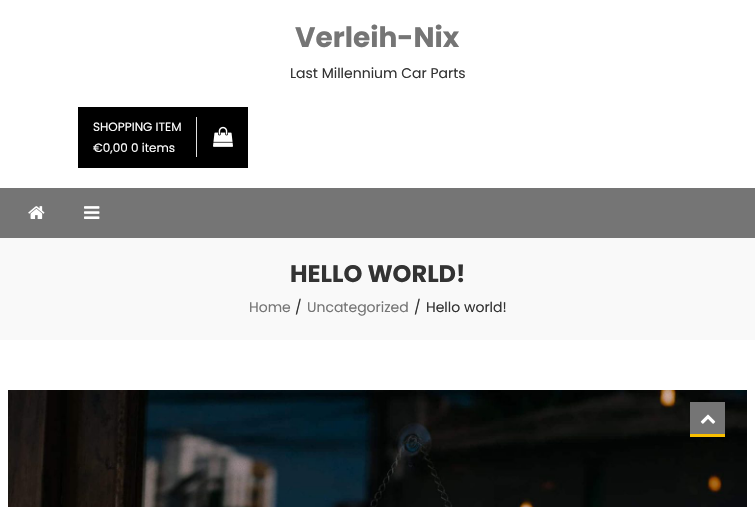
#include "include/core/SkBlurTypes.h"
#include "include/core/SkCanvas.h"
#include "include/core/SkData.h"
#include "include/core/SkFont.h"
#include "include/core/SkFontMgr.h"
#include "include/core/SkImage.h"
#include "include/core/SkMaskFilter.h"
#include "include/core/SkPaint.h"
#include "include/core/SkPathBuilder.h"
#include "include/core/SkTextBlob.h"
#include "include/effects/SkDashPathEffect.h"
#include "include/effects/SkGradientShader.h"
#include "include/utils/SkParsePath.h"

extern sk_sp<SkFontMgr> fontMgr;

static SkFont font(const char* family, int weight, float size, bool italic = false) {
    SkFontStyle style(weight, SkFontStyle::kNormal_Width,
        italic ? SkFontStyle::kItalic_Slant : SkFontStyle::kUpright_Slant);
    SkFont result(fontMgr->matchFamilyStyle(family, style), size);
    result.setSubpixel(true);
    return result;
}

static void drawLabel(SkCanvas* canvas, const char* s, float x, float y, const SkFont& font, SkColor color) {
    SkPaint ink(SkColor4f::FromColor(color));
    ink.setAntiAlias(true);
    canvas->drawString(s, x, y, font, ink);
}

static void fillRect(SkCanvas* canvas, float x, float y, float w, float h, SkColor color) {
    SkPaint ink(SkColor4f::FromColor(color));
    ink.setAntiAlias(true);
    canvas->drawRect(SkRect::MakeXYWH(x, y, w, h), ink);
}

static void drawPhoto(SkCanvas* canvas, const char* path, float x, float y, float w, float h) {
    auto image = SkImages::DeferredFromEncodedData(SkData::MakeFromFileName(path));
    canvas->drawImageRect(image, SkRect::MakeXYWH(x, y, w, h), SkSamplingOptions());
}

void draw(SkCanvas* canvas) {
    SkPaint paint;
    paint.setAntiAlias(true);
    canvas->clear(0xFFFFFFFF);
    SkFont font1 = font("Poppins", 700, 28);
    drawLabel(canvas, "Verleih-Nix", 295, 47, font1, 0xFF757575);
    SkFont font2 = font("Poppins", 400, 14);
    drawLabel(canvas, "Last Millennium Car Parts", 290, 78, font2, 0xFF333333);
    fillRect(canvas, 78, 107, 170, 61, 0xFF000000);
    SkFont font3 = font("Poppins", 400, 12);
    drawLabel(canvas, "SHOPPING ITEM", 93, 131, font3, 0xFFFFFFFF);
    drawLabel(canvas, "€0,00", 93, 152, font3, 0xFFFFFFFF);
    drawLabel(canvas, "0 items", 131, 152, font3, 0xFFFFFFFF);
    fillRect(canvas, 196, 117, 1, 40, 0xFFE1E1E1);
    drawPhoto(canvas, "assets/img1.png", 213, 126, 20, 21);
    fillRect(canvas, 0, 188, 755, 50, 0xFF757575);
    drawPhoto(canvas, "assets/img2.png", 28, 206, 17, 13);
    drawPhoto(canvas, "assets/img3.png", 84, 206, 16, 13);
    fillRect(canvas, 0, 238, 755, 102, 0xFFF9F9F9);
    SkFont font4 = font("Poppins", 700, 24);
    drawLabel(canvas, "HELLO WORLD!", 290, 282, font4, 0xFF333333);
    drawLabel(canvas, "Home", 249, 312, font2, 0xFF757575);
    drawLabel(canvas, "/", 295, 312, font2, 0xFF333333);
    drawLabel(canvas, "Uncategorized", 307, 312, font2, 0xFF757575);
    drawLabel(canvas, "/", 414, 312, font2, 0xFF333333);
    drawLabel(canvas, "Hello world!", 426, 312, font2, 0xFF333333);
    drawPhoto(canvas, "assets/img4.png", 8, 390, 739, 117);
    fillRect(canvas, 690, 402, 35, 32, 0xFF757575);
    fillRect(canvas, 690, 434, 35, 3, 0xFFF9BF00);
    drawPhoto(canvas, "assets/img5.png", 700, 414, 16, 10);
}
